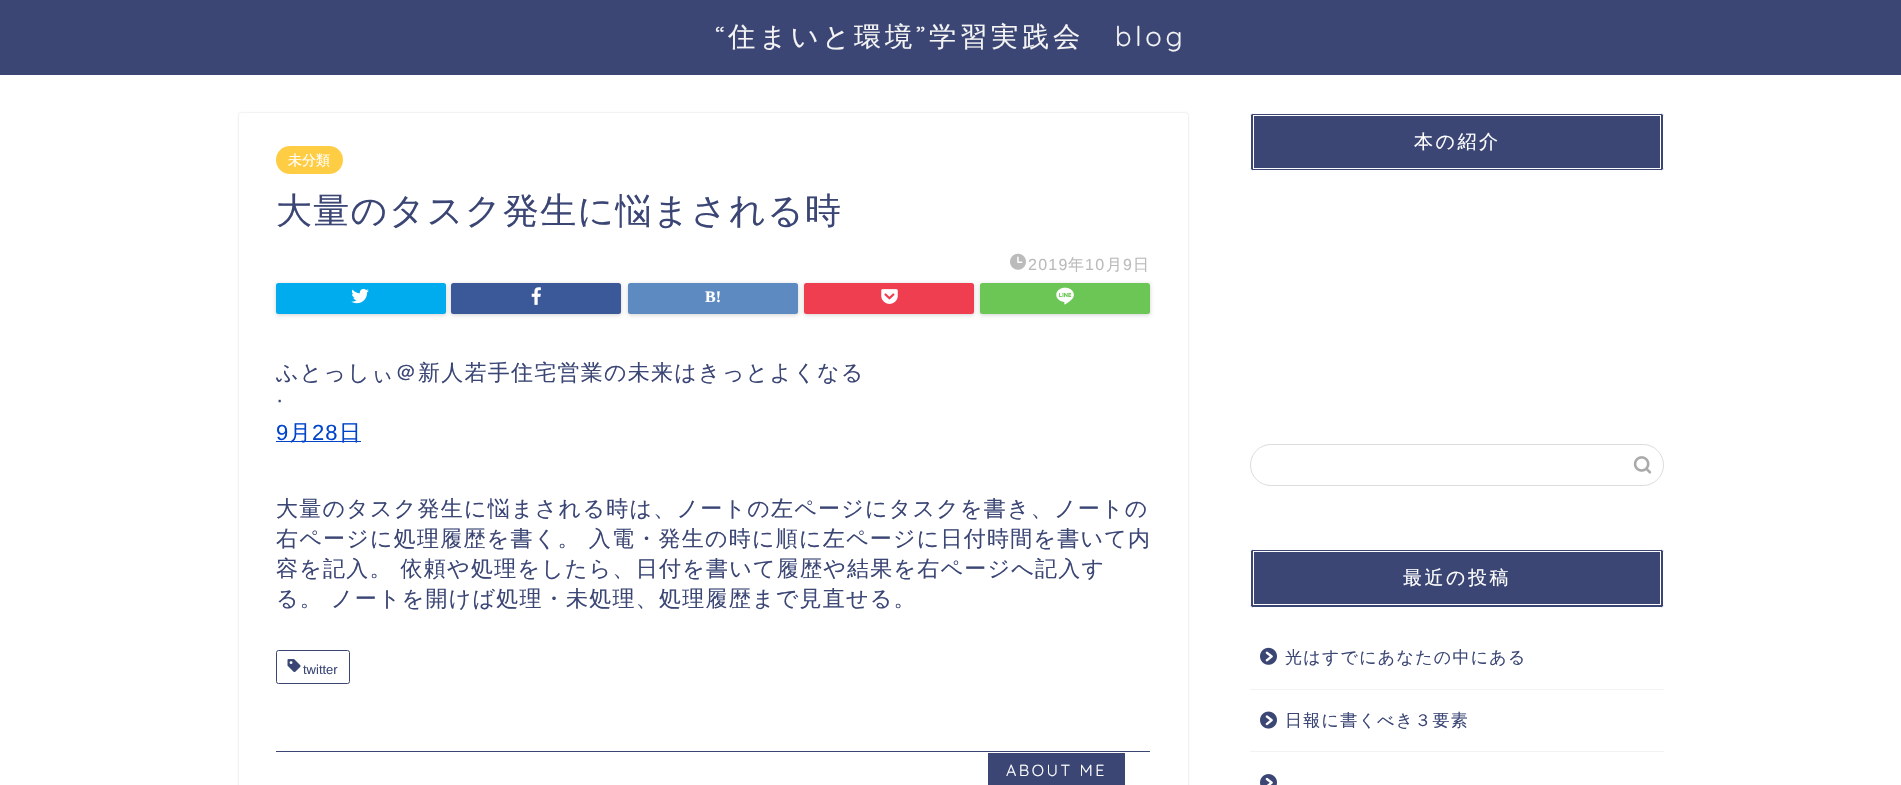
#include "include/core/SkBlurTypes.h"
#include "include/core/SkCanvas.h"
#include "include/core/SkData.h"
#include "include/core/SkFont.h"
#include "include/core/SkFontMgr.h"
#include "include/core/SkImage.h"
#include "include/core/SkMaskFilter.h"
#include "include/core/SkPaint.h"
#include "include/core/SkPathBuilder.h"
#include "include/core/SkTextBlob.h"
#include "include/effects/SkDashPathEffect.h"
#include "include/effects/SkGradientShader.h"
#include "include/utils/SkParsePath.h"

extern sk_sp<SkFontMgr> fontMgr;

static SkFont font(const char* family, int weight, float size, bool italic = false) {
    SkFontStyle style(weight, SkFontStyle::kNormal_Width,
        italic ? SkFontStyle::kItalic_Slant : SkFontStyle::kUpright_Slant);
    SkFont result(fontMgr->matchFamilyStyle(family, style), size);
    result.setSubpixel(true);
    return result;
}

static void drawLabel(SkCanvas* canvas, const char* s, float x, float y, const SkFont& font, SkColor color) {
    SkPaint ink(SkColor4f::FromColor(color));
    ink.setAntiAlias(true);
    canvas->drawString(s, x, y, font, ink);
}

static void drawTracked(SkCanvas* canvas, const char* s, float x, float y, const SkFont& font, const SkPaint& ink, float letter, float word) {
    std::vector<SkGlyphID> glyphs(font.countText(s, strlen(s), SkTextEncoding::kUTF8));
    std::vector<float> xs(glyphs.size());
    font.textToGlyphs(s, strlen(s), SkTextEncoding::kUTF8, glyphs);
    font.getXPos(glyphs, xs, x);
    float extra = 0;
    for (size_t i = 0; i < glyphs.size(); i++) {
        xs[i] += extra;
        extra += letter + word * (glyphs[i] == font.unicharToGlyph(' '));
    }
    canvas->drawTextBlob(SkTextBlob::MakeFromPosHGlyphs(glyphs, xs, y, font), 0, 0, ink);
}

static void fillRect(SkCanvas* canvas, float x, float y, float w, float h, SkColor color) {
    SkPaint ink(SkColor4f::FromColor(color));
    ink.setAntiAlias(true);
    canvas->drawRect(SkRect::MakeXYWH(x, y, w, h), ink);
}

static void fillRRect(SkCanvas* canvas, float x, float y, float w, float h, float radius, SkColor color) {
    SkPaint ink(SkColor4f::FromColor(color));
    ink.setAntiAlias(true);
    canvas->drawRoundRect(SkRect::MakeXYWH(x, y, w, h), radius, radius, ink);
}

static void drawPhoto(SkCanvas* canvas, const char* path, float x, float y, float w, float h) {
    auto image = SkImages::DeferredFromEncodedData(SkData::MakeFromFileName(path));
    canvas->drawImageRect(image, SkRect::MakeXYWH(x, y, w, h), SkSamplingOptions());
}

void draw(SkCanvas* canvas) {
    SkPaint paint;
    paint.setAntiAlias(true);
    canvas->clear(0xFFFFFFFF);
    fillRect(canvas, 0, 0, 1901, 75, 0xFF3B4675);
    SkFont font1 = font("Quicksand", 300, 27.25f);
    paint.setColor(0xFFF4F4F4);
    drawTracked(canvas, "“", 715, 46, font1, paint, 3.75f, 0);
    SkFont font2 = font("WenQuanYi Zen Hei", 500, 27.25f);
    drawTracked(canvas, "住まいと環境", 728, 46, font2, paint, 3.75f, 0);
    drawTracked(canvas, "”", 916, 46, font1, paint, 3.75f, 0);
    drawTracked(canvas, "学習実践会", 929, 46, font2, paint, 3.75f, 0);
    drawTracked(canvas, "blog", 1115, 46, font1, paint, 3.75f, 0);
    paint.setColor(0x2E000000);
    paint.setMaskFilter(SkMaskFilter::MakeBlur(kNormal_SkBlurStyle, 1));
    canvas->drawRoundRect(SkRect::MakeXYWH(239, 113, 949, 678), 2.5f, 2.5f, paint);
    paint.setMaskFilter(nullptr);
    fillRRect(canvas, 239, 113, 949, 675, 2.5f, 0xFFFFFFFF);
    fillRRect(canvas, 276, 146, 67, 28, 14, 0xFFFFCD44);
    SkFont font3 = font("WenQuanYi Zen Hei", 500, 14);
    drawLabel(canvas, "未分類", 288, 165, font3, 0xFFFFFFFF);
    SkFont font4 = font("WenQuanYi Zen Hei", 500, 36);
    paint.setColor(0xFF3B4675);
    drawTracked(canvas, "大量のタスク発生に悩まされる時", 276, 223, font4, paint, 1.25f, 0);
    drawPhoto(canvas, "assets/img1.png", 1010, 253, 16, 17);
    SkFont font5 = font("Liberation Sans", 400, 16);
    paint.setColor(0xFFBBBBBB);
    drawTracked(canvas, "2019", 1028, 270, font5, paint, 1.25f, 0);
    SkFont font6 = font("WenQuanYi Zen Hei", 500, 16);
    drawTracked(canvas, "年", 1068, 270, font6, paint, 1.25f, 0);
    drawTracked(canvas, "10", 1085, 270, font5, paint, 1.25f, 0);
    drawTracked(canvas, "月", 1106, 270, font6, paint, 1.25f, 0);
    drawTracked(canvas, "9", 1123, 270, font5, paint, 1.25f, 0);
    drawTracked(canvas, "日", 1133, 270, font6, paint, 1.25f, 0);
    paint.setColor(0x2E000000);
    paint.setMaskFilter(SkMaskFilter::MakeBlur(kNormal_SkBlurStyle, 2));
    canvas->drawRoundRect(SkRect::MakeXYWH(276, 284, 170, 31), 2.5f, 2.5f, paint);
    paint.setMaskFilter(nullptr);
    paint.setColor(0xFF00ACEE);
    canvas->drawRoundRect(SkRect::MakeXYWH(277.5f, 284.5f, 167, 28), 1, 1, paint);
    paint.setStroke(true);
    paint.setStrokeWidth(3);
    canvas->drawRoundRect(SkRect::MakeXYWH(277.5f, 284.5f, 167, 28), 1, 1, paint);
    drawPhoto(canvas, "assets/img2.png", 351, 288, 18, 16);
    paint.setStroke(false);
    paint.setColor(0x2E000000);
    paint.setMaskFilter(SkMaskFilter::MakeBlur(kNormal_SkBlurStyle, 2));
    canvas->drawRoundRect(SkRect::MakeXYWH(451, 284, 170, 31), 2.5f, 2.5f, paint);
    paint.setMaskFilter(nullptr);
    paint.setColor(0xFF3B5998);
    canvas->drawRoundRect(SkRect::MakeXYWH(452.5f, 284.5f, 167, 28), 1, 1, paint);
    paint.setStroke(true);
    canvas->drawRoundRect(SkRect::MakeXYWH(452.5f, 284.5f, 167, 28), 1, 1, paint);
    drawPhoto(canvas, "assets/img3.png", 531, 287, 10, 18);
    paint.setStroke(false);
    paint.setColor(0x2E000000);
    paint.setMaskFilter(SkMaskFilter::MakeBlur(kNormal_SkBlurStyle, 2));
    canvas->drawRoundRect(SkRect::MakeXYWH(628, 284, 170, 31), 2.5f, 2.5f, paint);
    paint.setMaskFilter(nullptr);
    paint.setColor(0xFF5D8AC1);
    canvas->drawRoundRect(SkRect::MakeXYWH(629.5f, 284.5f, 167, 28), 1, 1, paint);
    paint.setStroke(true);
    canvas->drawRoundRect(SkRect::MakeXYWH(629.5f, 284.5f, 167, 28), 1, 1, paint);
    SkFont font7 = font("Liberation Serif", 700, 16);
    drawLabel(canvas, "B!", 705, 302, font7, 0xFFFFFFFF);
    paint.setStroke(false);
    paint.setColor(0x2E000000);
    paint.setMaskFilter(SkMaskFilter::MakeBlur(kNormal_SkBlurStyle, 2));
    canvas->drawRoundRect(SkRect::MakeXYWH(804, 284, 170, 31), 2.5f, 2.5f, paint);
    paint.setMaskFilter(nullptr);
    paint.setColor(0xFFF03E51);
    canvas->drawRoundRect(SkRect::MakeXYWH(805.5f, 284.5f, 167, 28), 1, 1, paint);
    paint.setStroke(true);
    canvas->drawRoundRect(SkRect::MakeXYWH(805.5f, 284.5f, 167, 28), 1, 1, paint);
    drawPhoto(canvas, "assets/img4.png", 881, 289, 17, 15);
    paint.setStroke(false);
    paint.setColor(0x2E000000);
    paint.setMaskFilter(SkMaskFilter::MakeBlur(kNormal_SkBlurStyle, 2));
    canvas->drawRoundRect(SkRect::MakeXYWH(980, 284, 170, 31), 2.5f, 2.5f, paint);
    paint.setMaskFilter(nullptr);
    paint.setColor(0xFF6CC655);
    canvas->drawRoundRect(SkRect::MakeXYWH(981.5f, 284.5f, 167, 28), 1, 1, paint);
    paint.setStroke(true);
    canvas->drawRoundRect(SkRect::MakeXYWH(981.5f, 284.5f, 167, 28), 1, 1, paint);
    drawPhoto(canvas, "assets/img5.png", 1056, 287, 18, 18);
    SkFont font8 = font("WenQuanYi Zen Hei", 500, 22);
    paint.setStroke(false);
    paint.setColor(0xFF3B4675);
    drawTracked(canvas, "ふとっしぃ＠新人若手住宅営業の未来はきっとよくなる", 276, 380, font8, paint, 1.25f, 0);
    SkFont font9 = font("Liberation Sans", 400, 22);
    drawTracked(canvas, "·", 276, 407, font9, paint, 1.25f, 0);
    paint.setColor(0xFF0044CC);
    drawTracked(canvas, "9", 276, 440, font9, paint, 1, 0);
    fillRect(canvas, 276, 441, 85, 1, 0xFF0044CC);
    drawTracked(canvas, "月", 289, 440, font8, paint, 1, 0);
    drawTracked(canvas, "28", 312, 440, font9, paint, 1, 0);
    drawTracked(canvas, "日", 339, 440, font8, paint, 1, 0);
    paint.setColor(0xFF3B4675);
    drawTracked(canvas, "大量のタスク発生に悩まされる時は、ノートの左ページにタスクを書き、ノートの", 276, 516, font8, paint, 1.25f, 0);
    drawTracked(canvas, "右ページに処理履歴を書く。 入電・発生の時に順に左ページに日付時間を書いて内", 276, 546, font8, paint, 1.25f, 0);
    drawTracked(canvas, "容を記入。 依頼や処理をしたら、日付を書いて履歴や結果を右ページへ記入す", 276, 576, font8, paint, 1.25f, 0);
    drawTracked(canvas, "る。 ノートを開けば処理・未処理、処理履歴まで見直せる。", 276, 606, font8, paint, 1.25f, 0);
    paint.setStroke(true);
    paint.setStrokeWidth(1);
    canvas->drawRoundRect(SkRect::MakeXYWH(276.5f, 650.5f, 73, 33), 2, 2, paint);
    drawPhoto(canvas, "assets/img6.png", 287, 659, 14, 13);
    SkFont font10 = font("Liberation Sans", 400, 13);
    drawLabel(canvas, "twitter", 303, 674, font10, 0xFF3B4675);
    fillRect(canvas, 276, 751, 874, 1, 0xFF3B4675);
    fillRect(canvas, 988, 753, 137, 32, 0xFF3B4675);
    SkFont font11 = font("Quicksand", 300, 16);
    paint.setStroke(false);
    paint.setColor(0xFFFFFFFF);
    drawTracked(canvas, "ABOUT ME", 1006, 776, font11, paint, 2.5f, 0);
    paint.setColor(0xFF3B4675);
    canvas->drawRoundRect(SkRect::MakeXYWH(1250.5f, 113.5f, 413, 57), 2, 2, paint);
    paint.setStroke(true);
    paint.setColor(0xFFFFFFFF);
    canvas->drawRoundRect(SkRect::MakeXYWH(1250.5f, 113.5f, 413, 57), 2, 2, paint);
    canvas->drawRect(SkRect::MakeXYWH(1253.5f, 115.5f, 407, 53), paint);
    SkFont font12 = font("WenQuanYi Zen Hei", 500, 19);
    paint.setStroke(false);
    drawTracked(canvas, "本の紹介", 1414, 148, font12, paint, 2.5f, 0);
    paint.setStroke(true);
    paint.setColor(0xFFDDDDDD);
    canvas->drawRoundRect(SkRect::MakeXYWH(1250.5f, 444.5f, 413, 41), 20.5f, 20.5f, paint);
    drawPhoto(canvas, "assets/img7.png", 1633, 456, 19, 18);
    paint.setStroke(false);
    paint.setColor(0xFF3B4675);
    canvas->drawRoundRect(SkRect::MakeXYWH(1250.5f, 549.5f, 413, 58), 2, 2, paint);
    paint.setStroke(true);
    paint.setColor(0xFFFFFFFF);
    canvas->drawRoundRect(SkRect::MakeXYWH(1250.5f, 549.5f, 413, 58), 2, 2, paint);
    canvas->drawRect(SkRect::MakeXYWH(1253.5f, 551.5f, 407, 53), paint);
    paint.setStroke(false);
    drawTracked(canvas, "最近の投稿", 1403, 584, font12, paint, 2.5f, 0);
    fillRect(canvas, 1250, 689, 414, 1, 0xFFF2F2F2);
    drawPhoto(canvas, "assets/img8.png", 1260, 647, 17, 18);
    SkFont font13 = font("WenQuanYi Zen Hei", 500, 17);
    paint.setColor(0xFF3B4675);
    drawTracked(canvas, "光はすでにあなたの中にある", 1285, 663, font13, paint, 1.25f, 0);
    fillRect(canvas, 1250, 751, 414, 1, 0xFFF2F2F2);
    drawPhoto(canvas, "assets/img9.png", 1260, 711, 17, 18);
    drawTracked(canvas, "日報に書くべき３要素", 1285, 726, font13, paint, 1.25f, 0);
    drawPhoto(canvas, "assets/img10.png", 1260, 774, 17, 11);
}
